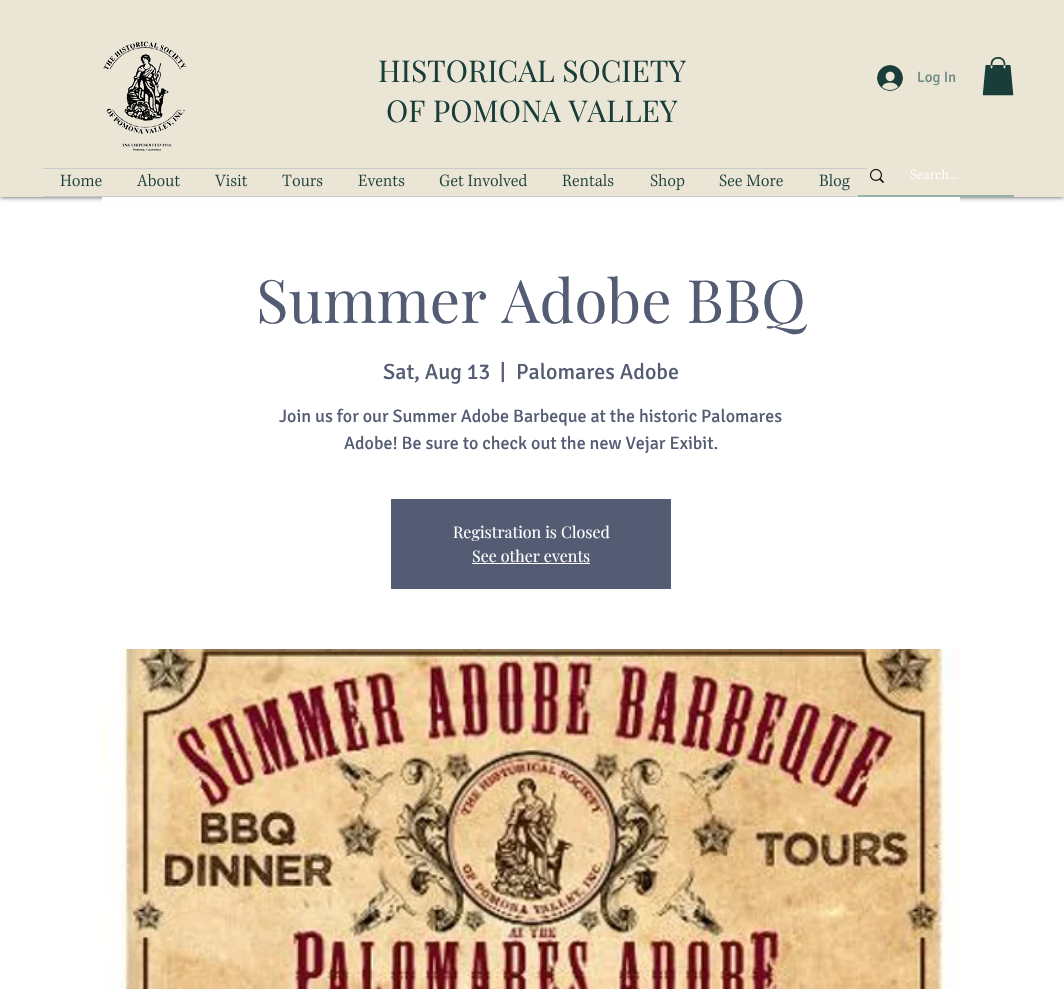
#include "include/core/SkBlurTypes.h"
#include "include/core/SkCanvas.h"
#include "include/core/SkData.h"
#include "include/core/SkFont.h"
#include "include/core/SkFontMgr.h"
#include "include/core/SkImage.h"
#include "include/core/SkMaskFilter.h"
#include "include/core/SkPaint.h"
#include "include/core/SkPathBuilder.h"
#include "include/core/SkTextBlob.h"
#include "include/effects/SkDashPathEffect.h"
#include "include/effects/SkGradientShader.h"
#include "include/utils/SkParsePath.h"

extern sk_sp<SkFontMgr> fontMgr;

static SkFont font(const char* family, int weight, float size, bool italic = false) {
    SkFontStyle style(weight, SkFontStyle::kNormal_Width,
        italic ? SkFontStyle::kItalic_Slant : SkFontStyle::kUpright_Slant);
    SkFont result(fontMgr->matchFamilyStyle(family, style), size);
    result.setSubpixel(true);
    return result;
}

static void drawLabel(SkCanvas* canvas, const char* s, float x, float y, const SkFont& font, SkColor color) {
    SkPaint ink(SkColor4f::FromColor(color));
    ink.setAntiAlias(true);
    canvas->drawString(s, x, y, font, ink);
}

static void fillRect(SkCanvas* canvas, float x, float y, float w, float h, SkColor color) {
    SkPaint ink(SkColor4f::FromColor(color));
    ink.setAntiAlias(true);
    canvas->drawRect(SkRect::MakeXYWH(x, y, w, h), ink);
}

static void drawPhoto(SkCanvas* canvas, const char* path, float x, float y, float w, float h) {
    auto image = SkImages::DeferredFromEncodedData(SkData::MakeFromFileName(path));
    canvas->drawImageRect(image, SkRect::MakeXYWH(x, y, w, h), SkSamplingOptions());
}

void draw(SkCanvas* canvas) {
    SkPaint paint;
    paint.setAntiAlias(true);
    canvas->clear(0xFFFFFFFF);
    paint.setColor(0xB3000000);
    paint.setMaskFilter(SkMaskFilter::MakeBlur(kNormal_SkBlurStyle, 2.5f));
    canvas->drawRect(SkRect::MakeXYWH(0, 0, 1064, 197), paint);
    paint.setMaskFilter(nullptr);
    fillRect(canvas, 0, 0, 1064, 197, 0xFFEBE5D6);
    drawPhoto(canvas, "assets/img1.png", 103, 41, 84, 110);
    SkFont font1 = font("Playfair Display", 400, 30);
    drawLabel(canvas, "HISTORICAL SOCIETY", 378, 82, font1, 0xFF193D38);
    drawLabel(canvas, "OF POMONA VALLEY", 386, 122, font1, 0xFF193D38);
    drawPhoto(canvas, "assets/img2.png", 877, 65, 26, 26);
    SkFont font2 = font("Signika", 400, 15);
    drawLabel(canvas, "Log In", 917, 82, font2, 0xFF6F8B83);
    drawPhoto(canvas, "assets/img3.png", 982, 57, 32, 39);
    fillRect(canvas, 43, 168, 824, 1, 0xFFCACACA);
    fillRect(canvas, 43, 196, 815, 1, 0xFFCACACA);
    drawPhoto(canvas, "assets/img4.png", 60, 174, 42, 13);
    drawPhoto(canvas, "assets/img5.png", 136, 174, 44, 13);
    drawPhoto(canvas, "assets/img6.png", 214, 174, 34, 13);
    drawPhoto(canvas, "assets/img7.png", 282, 174, 41, 13);
    drawPhoto(canvas, "assets/img8.png", 358, 174, 47, 13);
    drawPhoto(canvas, "assets/img9.png", 439, 173, 89, 14);
    drawPhoto(canvas, "assets/img10.png", 562, 174, 52, 13);
    drawPhoto(canvas, "assets/img11.png", 650, 174, 35, 17);
    drawPhoto(canvas, "assets/img12.png", 719, 174, 64, 13);
    drawPhoto(canvas, "assets/img13.png", 819, 174, 31, 17);
    fillRect(canvas, 858, 195, 156, 2, 0xFF97B1AA);
    drawPhoto(canvas, "assets/img14.png", 870, 169, 14, 14);
    drawPhoto(canvas, "assets/img15.png", 910, 169, 48, 11);
    fillRect(canvas, 102, 197, 858, 5, 0xFFFFFFFF);
    SkFont font3 = font("Playfair Display", 400, 60);
    drawLabel(canvas, "Summer Adobe BBQ", 256, 323, font3, 0xFF545C74);
    SkFont font4 = font("Signika", 400, 22);
    drawLabel(canvas, "Sat, Aug 13", 383, 379, font4, 0xFF545C74);
    drawLabel(canvas, "|", 500, 379, font4, 0xFF545C74);
    drawLabel(canvas, "Palomares Adobe", 516, 379, font4, 0xFF545C74);
    SkFont font5 = font("Signika", 400, 18);
    drawLabel(canvas, "Join us for our Summer Adobe Barbeque at the historic Palomares", 279, 422, font5, 0xFF545C74);
    drawLabel(canvas, "Adobe! Be sure to check out the new Vejar Exibit.", 344, 449, font5, 0xFF545C74);
    fillRect(canvas, 391, 499, 280, 90, 0xFF545C74);
    SkFont font6 = font("Playfair Display", 400, 16);
    drawLabel(canvas, "Registration is Closed", 453, 538, font6, 0xFFFFFFFF);
    drawLabel(canvas, "See other events", 472, 562, font6, 0xFFFFFFFF);
    fillRect(canvas, 472, 563, 118, 1, 0xFFFFFFFF);
    drawPhoto(canvas, "assets/img16.png", 102, 649, 858, 340);
}
